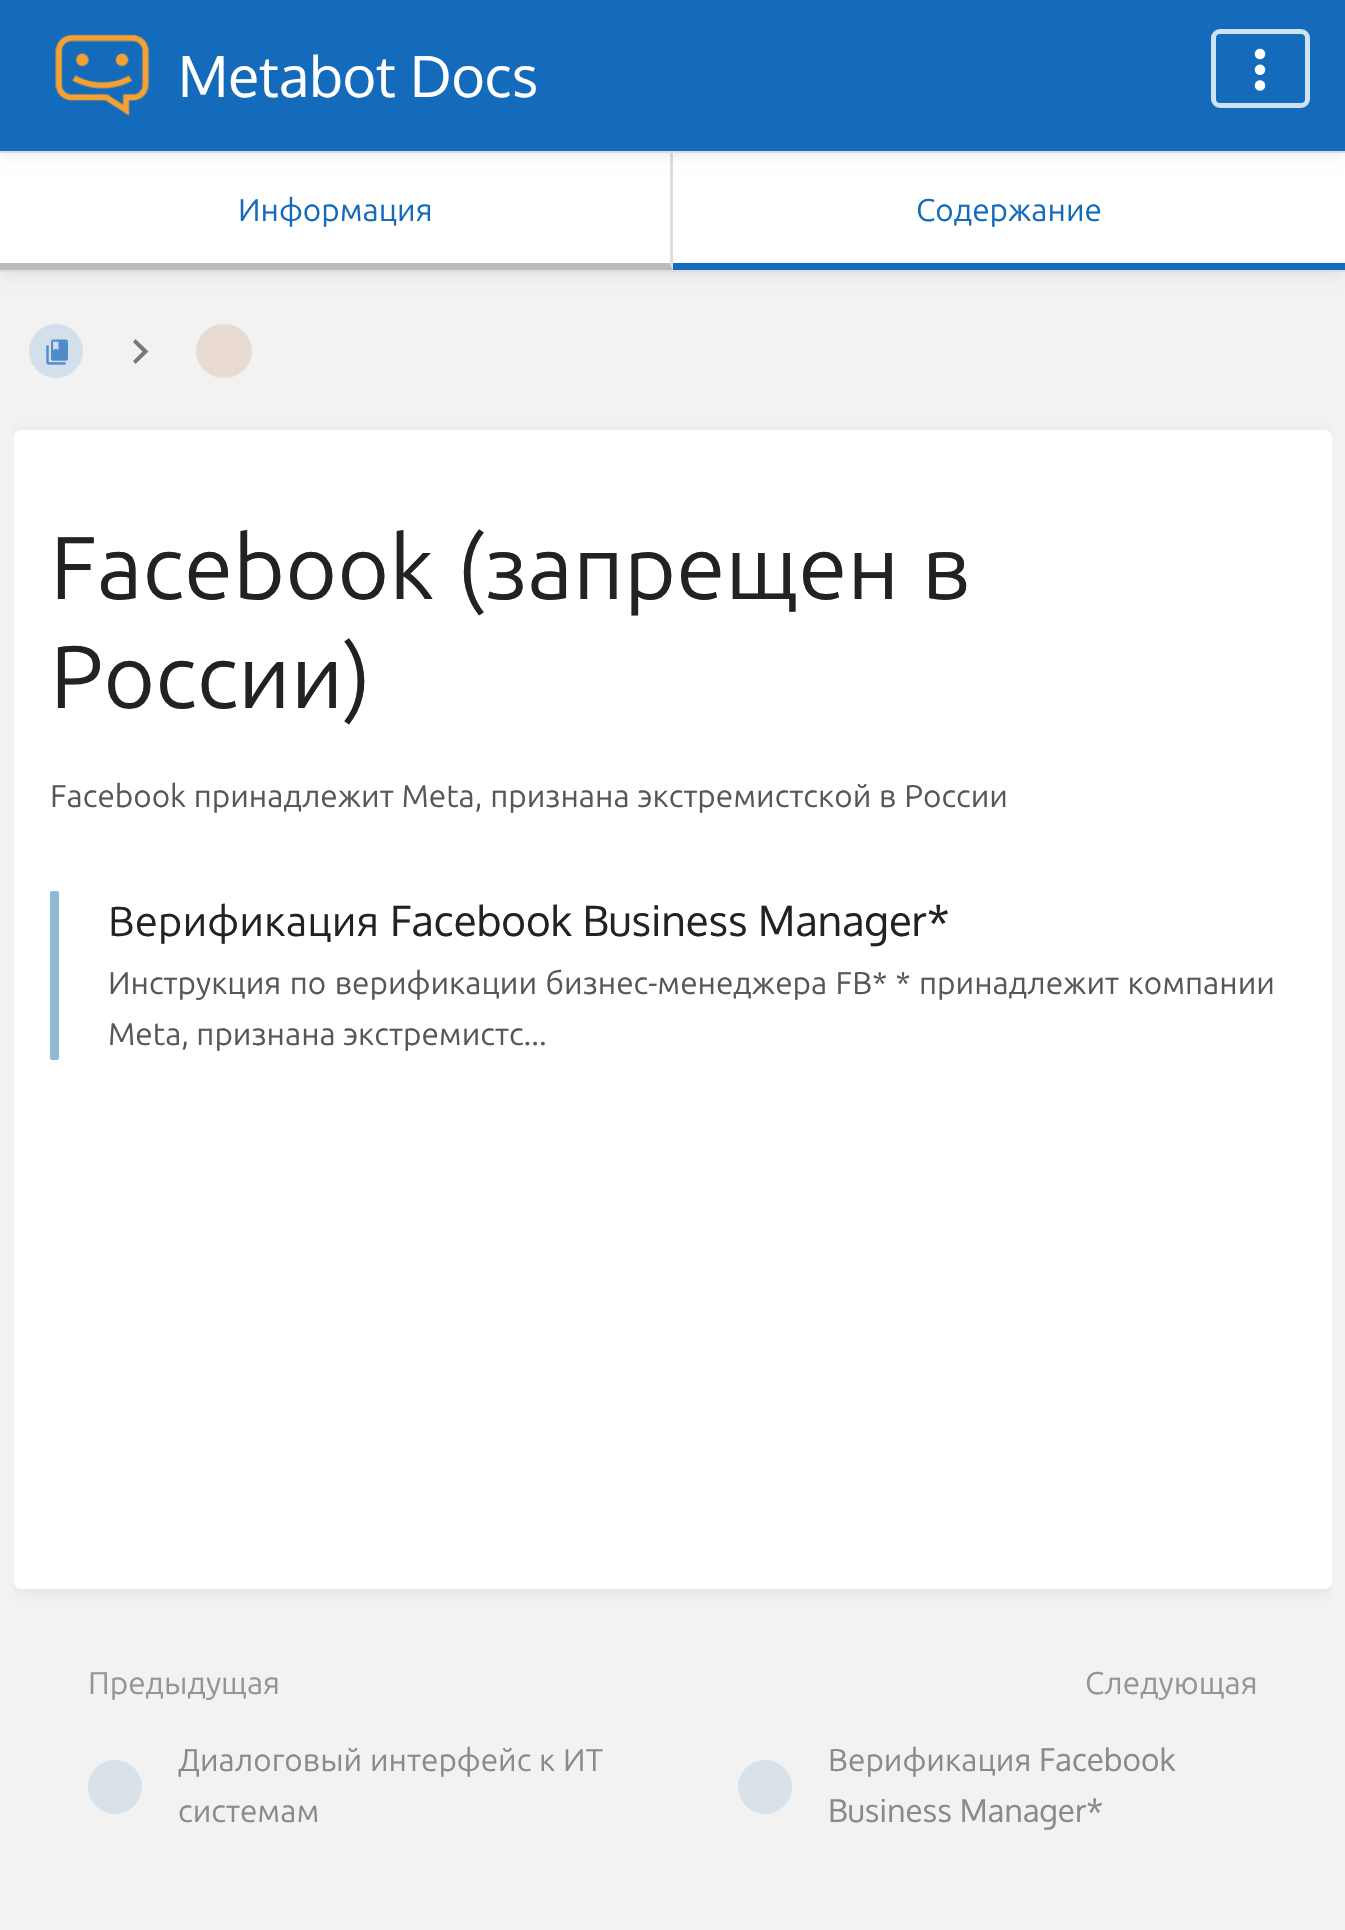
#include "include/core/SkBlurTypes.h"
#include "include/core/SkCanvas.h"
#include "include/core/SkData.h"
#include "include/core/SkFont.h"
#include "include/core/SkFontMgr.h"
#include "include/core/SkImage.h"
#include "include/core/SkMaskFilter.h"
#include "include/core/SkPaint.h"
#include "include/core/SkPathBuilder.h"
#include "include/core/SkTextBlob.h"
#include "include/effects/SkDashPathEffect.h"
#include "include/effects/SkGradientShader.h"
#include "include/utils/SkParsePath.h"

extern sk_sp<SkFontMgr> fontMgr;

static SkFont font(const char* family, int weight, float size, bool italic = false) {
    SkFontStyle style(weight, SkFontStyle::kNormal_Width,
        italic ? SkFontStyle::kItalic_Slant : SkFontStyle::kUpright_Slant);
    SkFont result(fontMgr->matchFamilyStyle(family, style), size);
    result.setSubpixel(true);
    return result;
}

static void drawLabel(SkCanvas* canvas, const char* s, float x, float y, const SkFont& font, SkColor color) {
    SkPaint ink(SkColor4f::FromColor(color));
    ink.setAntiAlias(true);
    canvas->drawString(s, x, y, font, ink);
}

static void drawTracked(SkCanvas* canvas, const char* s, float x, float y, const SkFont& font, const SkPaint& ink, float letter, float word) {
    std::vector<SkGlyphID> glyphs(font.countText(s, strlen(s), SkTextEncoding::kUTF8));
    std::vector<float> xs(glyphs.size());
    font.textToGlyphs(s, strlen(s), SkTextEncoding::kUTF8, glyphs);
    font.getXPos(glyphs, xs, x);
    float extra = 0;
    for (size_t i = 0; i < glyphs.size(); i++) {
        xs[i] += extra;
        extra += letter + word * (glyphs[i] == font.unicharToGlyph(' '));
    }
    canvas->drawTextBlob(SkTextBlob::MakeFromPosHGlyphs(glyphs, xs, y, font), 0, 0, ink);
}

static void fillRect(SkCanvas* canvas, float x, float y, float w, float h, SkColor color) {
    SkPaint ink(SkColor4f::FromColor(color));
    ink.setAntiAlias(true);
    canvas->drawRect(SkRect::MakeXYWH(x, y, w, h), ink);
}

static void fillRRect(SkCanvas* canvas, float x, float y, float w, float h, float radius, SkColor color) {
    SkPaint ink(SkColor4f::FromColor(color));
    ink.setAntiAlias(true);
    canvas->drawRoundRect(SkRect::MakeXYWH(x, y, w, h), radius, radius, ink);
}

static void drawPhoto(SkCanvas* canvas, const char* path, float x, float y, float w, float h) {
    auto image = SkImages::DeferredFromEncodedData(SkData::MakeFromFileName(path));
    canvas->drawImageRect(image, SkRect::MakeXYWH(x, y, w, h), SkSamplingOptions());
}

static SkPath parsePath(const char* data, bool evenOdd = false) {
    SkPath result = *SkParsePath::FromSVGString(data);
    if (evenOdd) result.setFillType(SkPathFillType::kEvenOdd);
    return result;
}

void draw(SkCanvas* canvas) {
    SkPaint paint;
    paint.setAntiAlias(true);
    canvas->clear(0xFFF2F2F2);
    paint.setColor(0x1A000000);
    paint.setMaskFilter(SkMaskFilter::MakeBlur(kNormal_SkBlurStyle, 7));
    canvas->drawRect(SkRect::MakeXYWH(2, 158, 1341, 114), paint);
    paint.setMaskFilter(nullptr);
    fillRect(canvas, 0, 153, 1345, 117, 0xFFFFFFFF);
    paint.setColor(0xFFDDDDDD);
    canvas->drawPath(parsePath("M673 153V270L670 263V153Z"), paint);
    paint.setColor(0x1A000000);
    paint.setMaskFilter(SkMaskFilter::MakeBlur(kNormal_SkBlurStyle, 7));
    canvas->drawRect(SkRect::MakeXYWH(2, 5, 1341, 148), paint);
    paint.setMaskFilter(nullptr);
    fillRect(canvas, 0, 0, 1345, 151, 0xFF146ABB);
    fillRect(canvas, 0, 151, 1345, 2, 0xFFDDDDDD);
    drawPhoto(canvas, "assets/img1.png", 55, 34, 95, 82);
    SkFont font1 = font("Oxygen", 400, 56.75f);
    drawLabel(canvas, "Metabot Docs", 178, 97, font1, 0xFFFFFFFF);
    paint.setStroke(true);
    paint.setStrokeWidth(5);
    paint.setColor(0xFFD0E1F1);
    canvas->drawRoundRect(SkRect::MakeXYWH(1213.5f, 31.5f, 94, 74), 6.5f, 6.5f, paint);
    drawPhoto(canvas, "assets/img2.png", 1254, 48, 12, 43);
    fillRect(canvas, 0, 270, 1345, 2, 0xFFDDDDDD);
    paint.setStroke(false);
    paint.setColor(0xFFBBBBBB);
    canvas->drawPath(parsePath("M673 270H0V263H670Z"), paint);
    SkFont font2 = font("Ubuntu", 400, 31.5f);
    drawLabel(canvas, "Информация", 238, 221, font2, 0xFF146ABB);
    fillRect(canvas, 673, 263, 672, 7, 0xFF146ABB);
    drawLabel(canvas, "Содержание", 916, 221, font2, 0xFF146ABB);
    drawPhoto(canvas, "assets/img3.png", 46, 339, 22, 26);
    paint.setColor(0x24146ABB);
    canvas->drawCircle(56, 351, 27, paint);
    paint.setColor(0xFF787878);
    canvas->drawPath(parsePath("M135.5 339L133 342L142.5 351.5L133 361L135.5 364L148.5 351.5Z"), paint);
    fillRRect(canvas, 196, 324, 56, 54, 27, 0xFFE9DBD2);
    canvas->save();
    canvas->clipRect(SkRect::MakeXYWH(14, 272, 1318, 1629));
    paint.setColor(0x1A000000);
    paint.setMaskFilter(SkMaskFilter::MakeBlur(kNormal_SkBlurStyle, 7));
    canvas->drawRoundRect(SkRect::MakeXYWH(16, 434, 1314, 1155), 5, 5, paint);
    paint.setMaskFilter(nullptr);
    canvas->restore();
    fillRRect(canvas, 14, 430, 1318, 1159, 7, 0xFFFFFFFF);
    SkFont font3 = font("Ubuntu", 400, 89);
    paint.setColor(0xFF222222);
    drawTracked(canvas, "Facebook (запрещен в", 50, 599, font3, paint, 0, 2);
    drawLabel(canvas, "России)", 50, 708, font3, 0xFF222222);
    paint.setColor(0xFF575757);
    drawTracked(canvas, "Facebook принадлежит Meta, признана экстремистской в России", 50, 807, font2, paint, 0, 0.5f);
    fillRRect(canvas, 50, 891, 9, 169, 2, 0xFF90B7D3);
    SkFont font4 = font("Ubuntu", 400, 42);
    drawLabel(canvas, "Верификация", 108, 936, font4, 0xFF222222);
    SkFont font5 = font("Oxygen", 400, 42);
    drawLabel(canvas, "Facebook Business Manager*", 390, 936, font5, 0xFF222222);
    drawTracked(canvas, "Инструкция по верификации бизнес-менеджера FB* * принадлежит компании", 108, 994, font2, paint, 0, 1.25f);
    drawLabel(canvas, "Meta, признана экстремистс...", 108, 1045, font2, 0xFF575757);
    drawLabel(canvas, "Предыдущая", 88, 1694, font2, 0xFF959595);
    paint.setColor(0xFFD9E2E9);
    canvas->drawCircle(115, 1787, 27, paint);
    paint.setColor(0xFF8A8A8A);
    drawTracked(canvas, "Диалоговый интерфейс к ИТ", 178, 1771, font2, paint, 0, 0.5f);
    drawLabel(canvas, "системам", 178, 1822, font2, 0xFF8A8A8A);
    drawLabel(canvas, "Следующая", 1085, 1694, font2, 0xFF959595);
    paint.setColor(0xFFD9E2E9);
    canvas->drawCircle(765, 1787, 27, paint);
    drawLabel(canvas, "Верификация", 828, 1771, font2, 0xFF8A8A8A);
    SkFont font6 = font("Oxygen", 400, 31.5f);
    drawLabel(canvas, "Facebook", 1039, 1771, font6, 0xFF8A8A8A);
    drawLabel(canvas, "Business Manager*", 828, 1822, font6, 0xFF8A8A8A);
}
